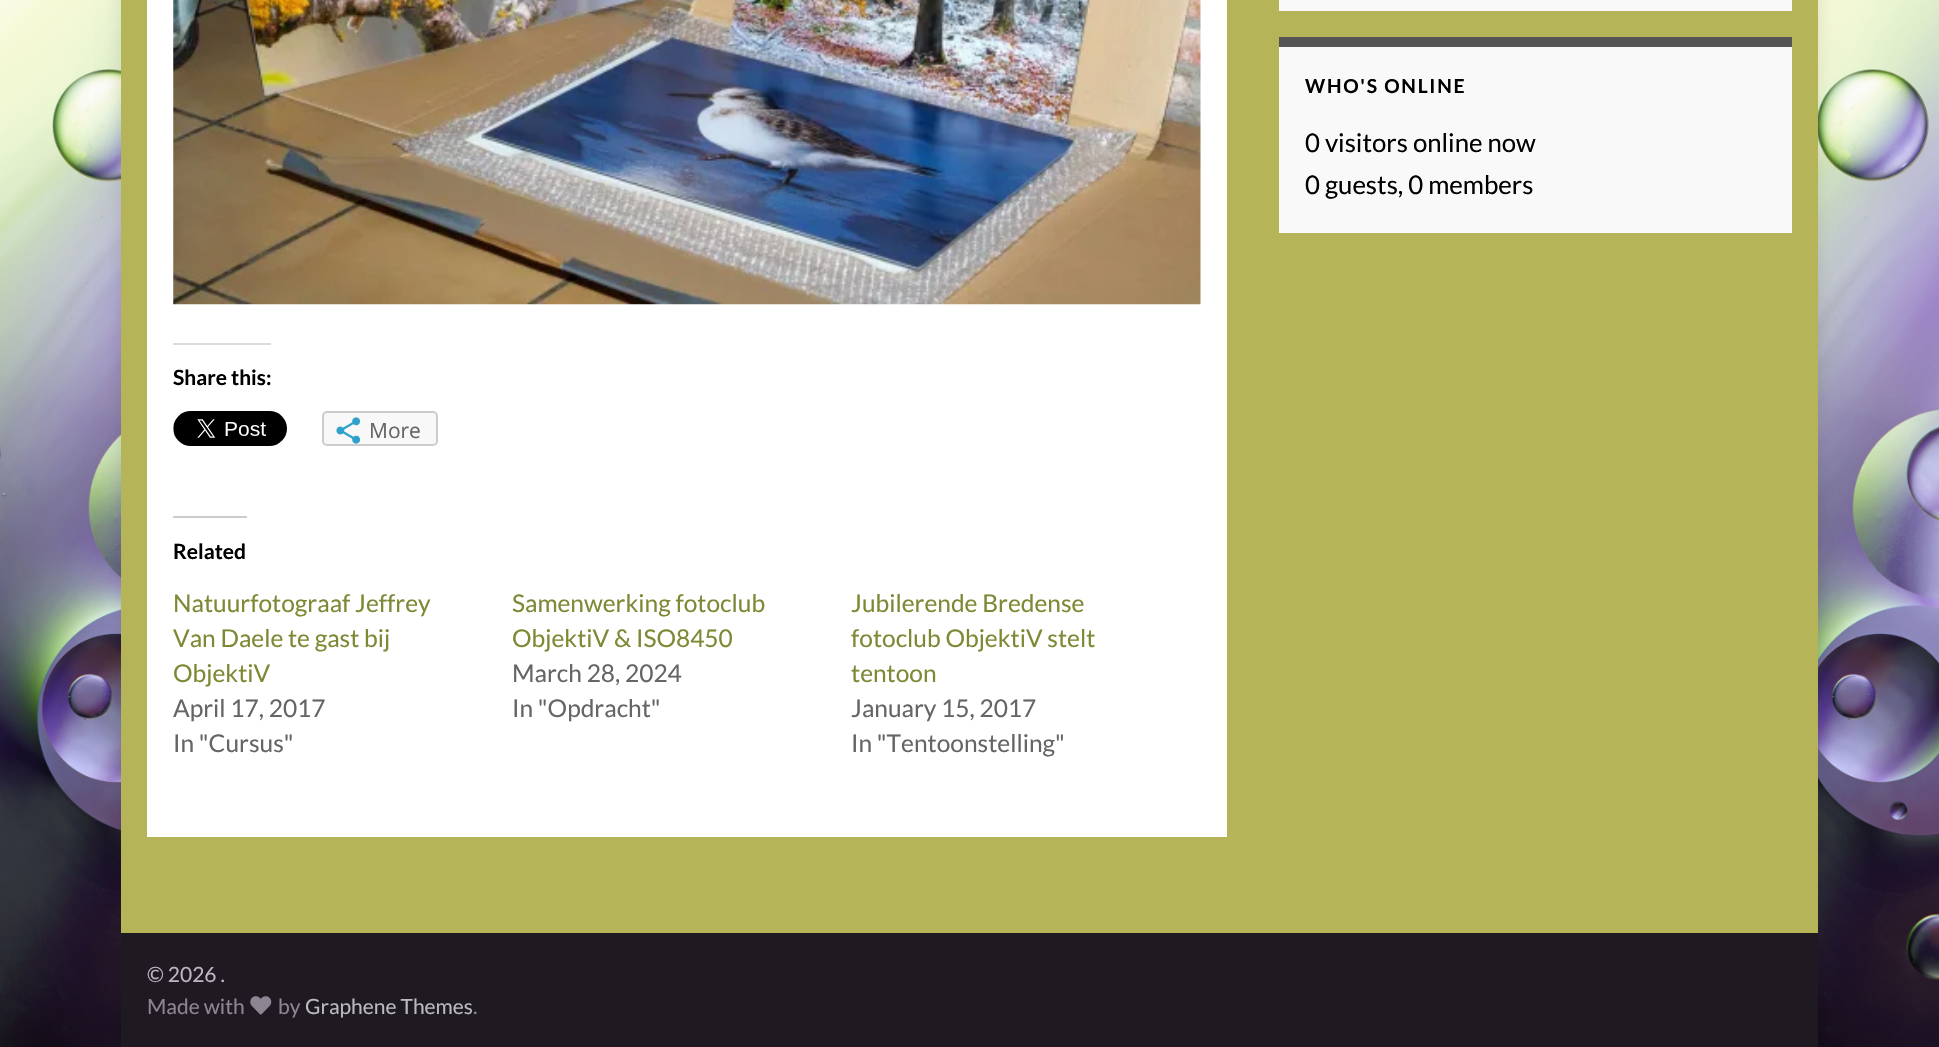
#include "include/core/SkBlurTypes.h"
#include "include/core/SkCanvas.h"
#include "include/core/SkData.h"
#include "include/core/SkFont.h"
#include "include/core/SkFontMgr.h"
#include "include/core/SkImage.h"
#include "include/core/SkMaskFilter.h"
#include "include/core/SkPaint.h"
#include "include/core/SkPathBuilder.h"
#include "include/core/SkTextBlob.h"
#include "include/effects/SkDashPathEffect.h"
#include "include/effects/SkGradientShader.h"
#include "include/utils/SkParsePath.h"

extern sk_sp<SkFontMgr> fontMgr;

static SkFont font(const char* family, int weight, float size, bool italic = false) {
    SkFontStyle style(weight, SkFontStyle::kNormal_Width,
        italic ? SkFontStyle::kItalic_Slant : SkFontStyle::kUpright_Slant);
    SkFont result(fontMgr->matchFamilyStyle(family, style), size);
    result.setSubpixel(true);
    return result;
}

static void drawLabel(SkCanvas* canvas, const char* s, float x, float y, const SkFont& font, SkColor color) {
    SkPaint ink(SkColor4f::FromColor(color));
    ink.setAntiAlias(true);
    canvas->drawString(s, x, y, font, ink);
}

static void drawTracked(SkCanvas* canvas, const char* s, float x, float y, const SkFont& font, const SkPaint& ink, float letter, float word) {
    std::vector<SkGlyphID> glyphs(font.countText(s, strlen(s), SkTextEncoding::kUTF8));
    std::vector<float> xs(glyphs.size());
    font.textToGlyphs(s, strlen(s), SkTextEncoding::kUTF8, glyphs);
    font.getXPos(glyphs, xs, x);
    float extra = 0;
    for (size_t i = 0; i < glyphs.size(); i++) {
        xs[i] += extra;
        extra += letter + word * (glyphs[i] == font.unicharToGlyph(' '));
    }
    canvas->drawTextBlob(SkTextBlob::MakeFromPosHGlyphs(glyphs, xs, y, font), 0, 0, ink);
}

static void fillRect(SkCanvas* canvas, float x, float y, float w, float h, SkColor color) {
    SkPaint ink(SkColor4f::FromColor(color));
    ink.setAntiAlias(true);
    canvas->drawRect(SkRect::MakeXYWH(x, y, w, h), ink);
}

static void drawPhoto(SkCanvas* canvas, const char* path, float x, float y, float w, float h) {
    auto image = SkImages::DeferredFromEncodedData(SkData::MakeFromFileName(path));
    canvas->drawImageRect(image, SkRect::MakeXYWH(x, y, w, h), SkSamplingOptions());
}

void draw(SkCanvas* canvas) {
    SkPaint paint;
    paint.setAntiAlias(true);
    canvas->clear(0xFFFFFFFF);
    drawPhoto(canvas, "assets/img1.png", 0, 0, 1939, 1047);
    paint.setColor(0x1A000000);
    paint.setMaskFilter(SkMaskFilter::MakeBlur(kNormal_SkBlurStyle, 9));
    canvas->drawRect(SkRect::MakeXYWH(121, -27, 1697, 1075), paint);
    paint.setMaskFilter(nullptr);
    fillRect(canvas, 121, 0, 1697, 933, 0xFFB5B458);
    fillRect(canvas, 1279, 0, 513, 11, 0xFFF9F9F9);
    fillRect(canvas, 1279, 47, 513, 186, 0xFFF9F9F9);
    fillRect(canvas, 1279, 37, 513, 10, 0xFF555555);
    SkFont font1 = font("Lato", 700, 19.25f);
    paint.setColor(0xFF000000);
    drawTracked(canvas, "WHO'S ONLINE", 1305, 93, font1, paint, 1.75f, 0);
    SkFont font2 = font("Lato", 400, 25.75f);
    drawLabel(canvas, "0 visitors online now", 1305, 152, font2, 0xFF000000);
    drawLabel(canvas, "0 guests, 0 members", 1305, 194, font2, 0xFF000000);
    fillRect(canvas, 147, 0, 1080, 837, 0xFFFFFFFF);
    drawPhoto(canvas, "assets/img2.png", 173, 0, 1028, 305);
    fillRect(canvas, 173, 343, 98, 2, 0xFFDCDCDE);
    SkFont font3 = font("Lato", 700, 21);
    drawLabel(canvas, "Share this:", 173, 385, font3, 0xFF000000);
    drawPhoto(canvas, "assets/img3.png", 173, 411, 114, 35);
    paint.setColor(0xFFF8F8F8);
    canvas->drawRoundRect(SkRect::MakeXYWH(323, 412, 114, 33), 4, 4, paint);
    paint.setStroke(true);
    paint.setStrokeWidth(2);
    paint.setColor(0xFFCCCCCC);
    canvas->drawRoundRect(SkRect::MakeXYWH(323, 412, 114, 33), 4, 4, paint);
    drawPhoto(canvas, "assets/img4.png", 336, 417, 25, 27);
    SkFont font4 = font("Open Sans", 400, 21);
    drawLabel(canvas, "More", 369, 438, font4, 0xFF656565);
    fillRect(canvas, 173, 516, 74, 2, 0xFFCCCCCC);
    drawLabel(canvas, "Related", 173, 559, font3, 0xFF000000);
    SkFont font5 = font("Lato", 400, 24.5f);
    drawLabel(canvas, "Natuurfotograaf Jeffrey", 173, 612, font5, 0xFF7F8834);
    drawLabel(canvas, "Van Daele te gast bij", 173, 647, font5, 0xFF7F8834);
    drawLabel(canvas, "ObjektiV", 173, 682, font5, 0xFF7F8834);
    drawLabel(canvas, "April 17, 2017", 173, 717, font5, 0xFF656565);
    drawLabel(canvas, "In \"Cursus\"", 173, 752, font5, 0xFF656565);
    drawLabel(canvas, "Samenwerking fotoclub", 512, 612, font5, 0xFF7F8834);
    drawLabel(canvas, "ObjektiV & ISO8450", 512, 647, font5, 0xFF7F8834);
    drawLabel(canvas, "March 28, 2024", 512, 682, font5, 0xFF656565);
    drawLabel(canvas, "In \"Opdracht\"", 512, 717, font5, 0xFF656565);
    drawLabel(canvas, "Jubilerende Bredense", 851, 612, font5, 0xFF7F8834);
    drawLabel(canvas, "fotoclub ObjektiV stelt", 851, 647, font5, 0xFF7F8834);
    drawLabel(canvas, "tentoon", 851, 682, font5, 0xFF7F8834);
    drawLabel(canvas, "January 15, 2017", 851, 717, font5, 0xFF656565);
    drawLabel(canvas, "In \"Tentoonstelling\"", 851, 752, font5, 0xFF656565);
    fillRect(canvas, 121, 933, 1697, 114, 0xFF1F1A22);
    SkFont font6 = font("Lato", 400, 21);
    drawLabel(canvas, "© 2026 .", 147, 982, font6, 0xFFBCB4C1);
    drawLabel(canvas, "Made with", 147, 1014, font6, 0xFF8D8691);
    drawPhoto(canvas, "assets/img5.png", 250, 996, 22, 19);
    drawLabel(canvas, "by", 278, 1014, font6, 0xFF8D8691);
    drawLabel(canvas, "Graphene Themes", 305, 1014, font6, 0xFFBCBABD);
    drawLabel(canvas, ".", 473, 1014, font6, 0xFF8D8691);
}
